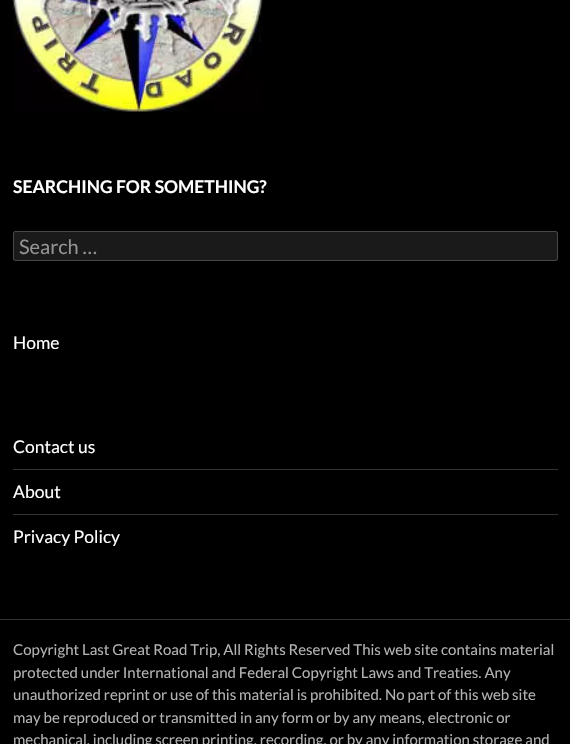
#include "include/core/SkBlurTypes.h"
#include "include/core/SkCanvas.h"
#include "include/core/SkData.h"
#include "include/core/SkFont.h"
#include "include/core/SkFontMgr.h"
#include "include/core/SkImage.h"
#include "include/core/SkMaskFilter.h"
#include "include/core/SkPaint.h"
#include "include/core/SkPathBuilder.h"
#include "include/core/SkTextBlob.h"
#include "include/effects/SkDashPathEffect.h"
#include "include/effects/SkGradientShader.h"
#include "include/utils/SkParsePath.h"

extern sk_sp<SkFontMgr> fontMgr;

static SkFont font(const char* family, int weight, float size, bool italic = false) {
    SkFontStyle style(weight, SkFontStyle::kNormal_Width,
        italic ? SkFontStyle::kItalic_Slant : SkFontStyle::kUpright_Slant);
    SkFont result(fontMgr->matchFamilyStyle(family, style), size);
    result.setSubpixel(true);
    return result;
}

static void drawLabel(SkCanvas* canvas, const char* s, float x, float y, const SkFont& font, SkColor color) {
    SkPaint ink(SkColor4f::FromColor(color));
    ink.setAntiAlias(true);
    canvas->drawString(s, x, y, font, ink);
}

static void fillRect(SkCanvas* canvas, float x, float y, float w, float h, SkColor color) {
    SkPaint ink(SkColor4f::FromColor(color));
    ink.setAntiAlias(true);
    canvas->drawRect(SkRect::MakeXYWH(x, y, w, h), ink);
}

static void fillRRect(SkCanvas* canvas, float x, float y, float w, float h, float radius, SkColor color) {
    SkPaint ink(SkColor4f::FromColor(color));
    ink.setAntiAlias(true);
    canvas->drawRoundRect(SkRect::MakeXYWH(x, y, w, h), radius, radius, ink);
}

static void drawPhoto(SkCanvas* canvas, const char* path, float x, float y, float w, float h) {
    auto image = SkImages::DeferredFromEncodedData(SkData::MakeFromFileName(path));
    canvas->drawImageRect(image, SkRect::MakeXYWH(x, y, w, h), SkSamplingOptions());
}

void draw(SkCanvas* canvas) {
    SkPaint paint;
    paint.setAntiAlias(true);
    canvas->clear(0xFF000000);
    drawPhoto(canvas, "assets/img1.png", 12, 0, 251, 112);
    SkFont font1 = font("Lato", 700, 17.5f);
    drawLabel(canvas, "SEARCHING FOR SOMETHING?", 13, 193, font1, 0xFFFFFFFF);
    fillRRect(canvas, 13, 231, 545, 30, 2.5f, 0xFF1A1A1A);
    paint.setStroke(true);
    paint.setStrokeWidth(1);
    paint.setColor(0x33FFFFFF);
    canvas->drawRoundRect(SkRect::MakeXYWH(13.5f, 231.5f, 544, 29), 2, 2, paint);
    SkFont font2 = font("Lato", 400, 20);
    drawLabel(canvas, "Search …", 19, 254, font2, 0xFF939393);
    SkFont font3 = font("Lato", 400, 17.5f);
    drawLabel(canvas, "Home", 13, 349, font3, 0xFFFFFFFF);
    drawLabel(canvas, "Contact us", 13, 453, font3, 0xFFFFFFFF);
    fillRect(canvas, 13, 469, 545, 1, 0xFF333333);
    drawLabel(canvas, "About", 13, 498, font3, 0xFFFFFFFF);
    fillRect(canvas, 13, 514, 545, 1, 0xFF333333);
    drawLabel(canvas, "Privacy Policy", 13, 543, font3, 0xFFFFFFFF);
    fillRect(canvas, 0, 619, 570, 1, 0xFF333333);
    SkFont font4 = font("Lato", 400, 15);
    drawLabel(canvas, "Copyright Last Great Road Trip, All Rights Reserved This web site contains material", 13, 655, font4, 0xFFB3B3B3);
    drawLabel(canvas, "protected under International and Federal Copyright Laws and Treaties. Any", 13, 678, font4, 0xFFB3B3B3);
    drawLabel(canvas, "unauthorized reprint or use of this material is prohibited. No part of this web site", 13, 700, font4, 0xFFB3B3B3);
    drawLabel(canvas, "may be reproduced or transmitted in any form or by any means, electronic or", 13, 723, font4, 0xFFB3B3B3);
    drawLabel(canvas, "mechanical, including screen printing, recording, or by any information storage and", 13, 745, font4, 0xFFB3B3B3);
}
